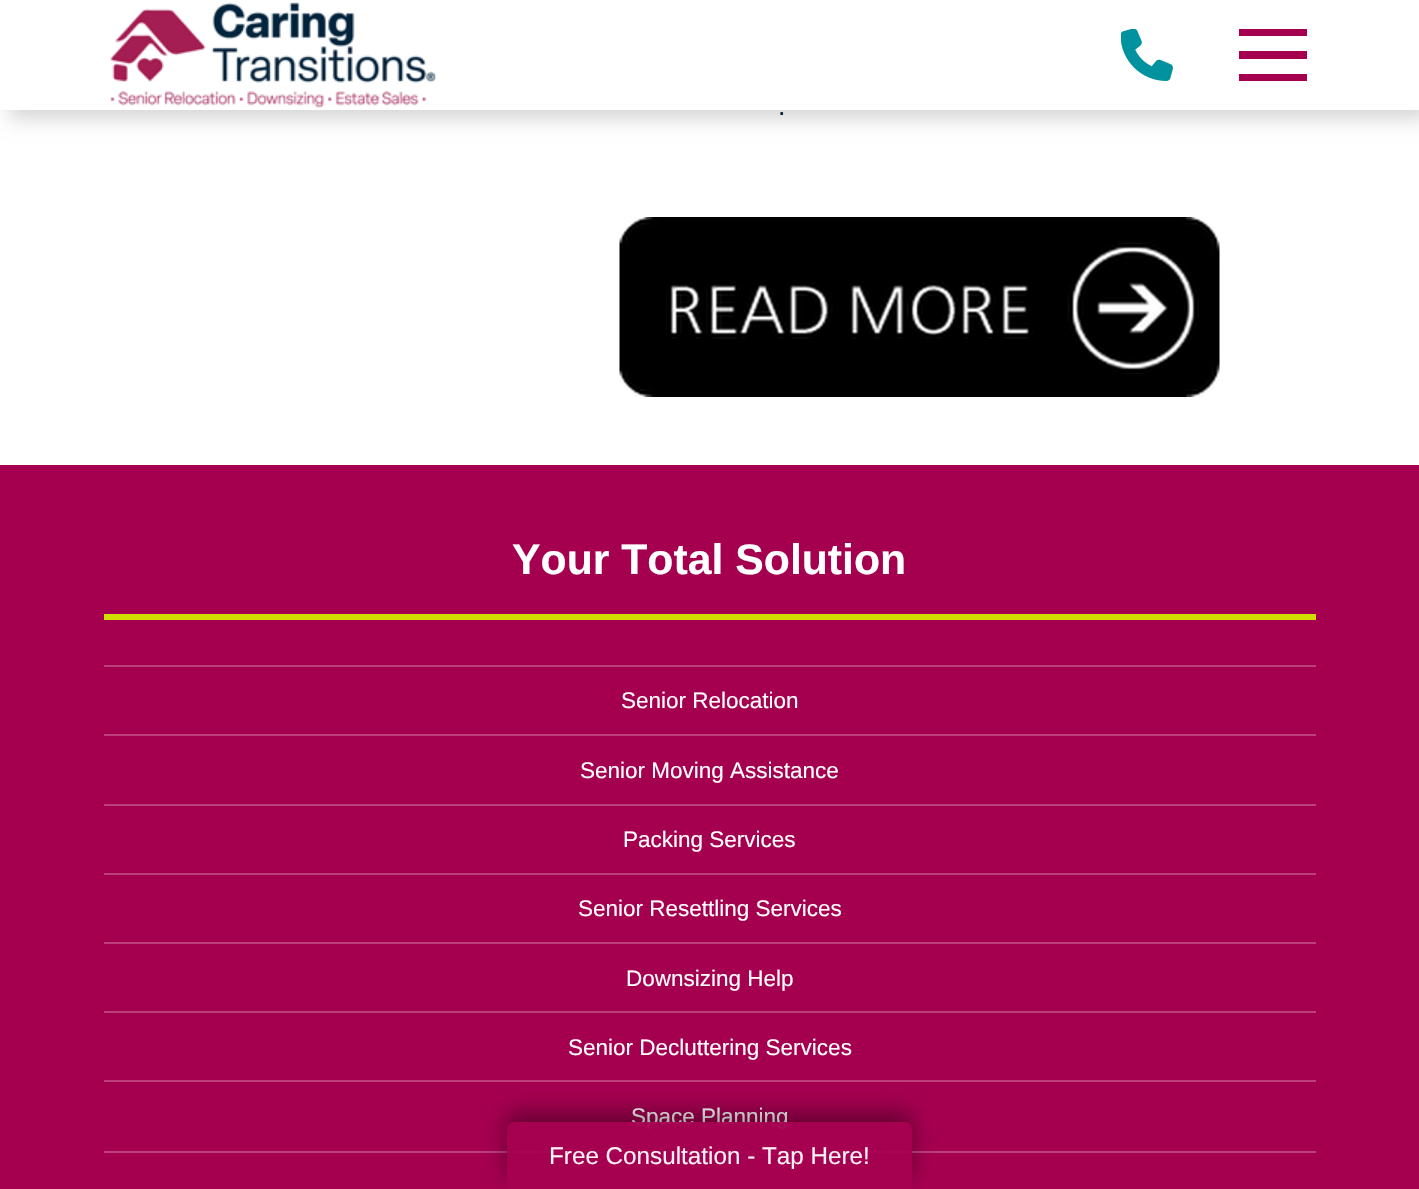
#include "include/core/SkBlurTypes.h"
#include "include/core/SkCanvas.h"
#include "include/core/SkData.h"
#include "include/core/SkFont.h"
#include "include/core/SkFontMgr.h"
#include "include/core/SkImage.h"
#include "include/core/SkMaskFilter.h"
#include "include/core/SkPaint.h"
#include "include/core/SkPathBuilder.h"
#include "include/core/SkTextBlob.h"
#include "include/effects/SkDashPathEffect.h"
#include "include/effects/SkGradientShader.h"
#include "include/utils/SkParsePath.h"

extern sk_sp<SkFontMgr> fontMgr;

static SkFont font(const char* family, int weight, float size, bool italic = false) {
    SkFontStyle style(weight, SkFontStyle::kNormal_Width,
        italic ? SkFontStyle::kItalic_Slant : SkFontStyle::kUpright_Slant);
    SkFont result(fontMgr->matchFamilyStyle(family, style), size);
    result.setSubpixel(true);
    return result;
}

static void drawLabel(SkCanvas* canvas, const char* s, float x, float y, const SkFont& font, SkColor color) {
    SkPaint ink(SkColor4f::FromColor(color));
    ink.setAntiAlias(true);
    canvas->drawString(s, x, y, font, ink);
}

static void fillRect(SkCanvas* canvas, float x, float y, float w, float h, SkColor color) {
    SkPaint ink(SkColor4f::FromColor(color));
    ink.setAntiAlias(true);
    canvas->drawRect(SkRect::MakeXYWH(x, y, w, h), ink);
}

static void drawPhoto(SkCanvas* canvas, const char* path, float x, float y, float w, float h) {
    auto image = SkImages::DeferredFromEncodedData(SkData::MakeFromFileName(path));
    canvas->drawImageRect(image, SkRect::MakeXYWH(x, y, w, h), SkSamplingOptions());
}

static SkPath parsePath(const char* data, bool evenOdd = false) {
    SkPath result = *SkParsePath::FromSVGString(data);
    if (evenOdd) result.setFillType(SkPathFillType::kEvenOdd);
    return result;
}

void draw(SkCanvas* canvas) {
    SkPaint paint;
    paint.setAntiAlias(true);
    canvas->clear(0xFFFFFFFF);
    paint.setColor(0x29000000);
    paint.setMaskFilter(SkMaskFilter::MakeBlur(kNormal_SkBlurStyle, 9));
    canvas->drawRect(SkRect::MakeXYWH(9, 9, 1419, 110), paint);
    paint.setMaskFilter(nullptr);
    fillRect(canvas, 0, 0, 1419, 110, 0xFFFFFFFF);
    drawPhoto(canvas, "assets/img1.png", 110, 2, 327, 106);
    drawPhoto(canvas, "assets/img2.png", 1121, 29, 52, 52);
    fillRect(canvas, 1239, 29, 68, 7, 0xFFA50050);
    fillRect(canvas, 1239, 51, 68, 8, 0xFFA50050);
    fillRect(canvas, 1239, 74, 68, 7, 0xFFA50050);
    SkFont font1 = font("Liberation Sans", 400, 27);
    drawLabel(canvas, ".", 778, 115, font1, 0xFF00263E);
    drawPhoto(canvas, "assets/img3.png", 619, 217, 601, 180);
    fillRect(canvas, 0, 465, 1419, 724, 0xFFA50050);
    fillRect(canvas, 104, 614, 1212, 6, 0xFFD0DF00);
    SkFont font2 = font("Liberation Sans", 700, 42.75f);
    drawLabel(canvas, "Your Total Solution", 512, 574, font2, 0xFFFFFFFF);
    fillRect(canvas, 104, 665, 1212, 2, 0xFFBC407C);
    fillRect(canvas, 104, 734, 1212, 2, 0xFFBC407C);
    SkFont font3 = font("Liberation Sans", 400, 22.5f);
    drawLabel(canvas, "Senior Relocation", 621, 708, font3, 0xFFFFFFFF);
    fillRect(canvas, 104, 804, 1212, 2, 0xFFBC407C);
    drawLabel(canvas, "Senior Moving Assistance", 580, 778, font3, 0xFFFFFFFF);
    fillRect(canvas, 104, 873, 1212, 2, 0xFFBC407C);
    drawLabel(canvas, "Packing Services", 623, 847, font3, 0xFFFFFFFF);
    fillRect(canvas, 104, 942, 1212, 2, 0xFFBC407C);
    drawLabel(canvas, "Senior Resettling Services", 578, 916, font3, 0xFFFFFFFF);
    fillRect(canvas, 104, 1011, 1212, 2, 0xFFBC407C);
    drawLabel(canvas, "Downsizing Help", 626, 986, font3, 0xFFFFFFFF);
    fillRect(canvas, 104, 1080, 1212, 2, 0xFFBC407C);
    drawLabel(canvas, "Senior Decluttering Services", 568, 1055, font3, 0xFFFFFFFF);
    fillRect(canvas, 104, 1151, 1212, 2, 0xFFBC407C);
    drawLabel(canvas, "Space Planning", 631, 1124, font3, 0xFFFFFFFF);
    canvas->save();
    canvas->clipPath(parsePath("M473 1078H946V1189H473ZM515 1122H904C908.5 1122 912 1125.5 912 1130V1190H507V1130C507 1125.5 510.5 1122 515 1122Z", true), true);
    paint.setColor(0x61000000);
    paint.setMaskFilter(SkMaskFilter::MakeBlur(kNormal_SkBlurStyle, 11));
    canvas->drawRoundRect(SkRect::MakeXYWH(507, 1112, 405, 67), 8, 8, paint);
    paint.setMaskFilter(nullptr);
    canvas->restore();
    paint.setColor(0xF2A50050);
    canvas->drawPath(parsePath("M515 1122H904C908.5 1122 912 1125.5 912 1130V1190H507V1130C507 1125.5 510.5 1122 515 1122Z"), paint);
    SkFont font4 = font("Liberation Sans", 400, 24.25f);
    drawLabel(canvas, "Free Consultation - Tap Here!", 549, 1164, font4, 0xFFFBF2F6);
}
